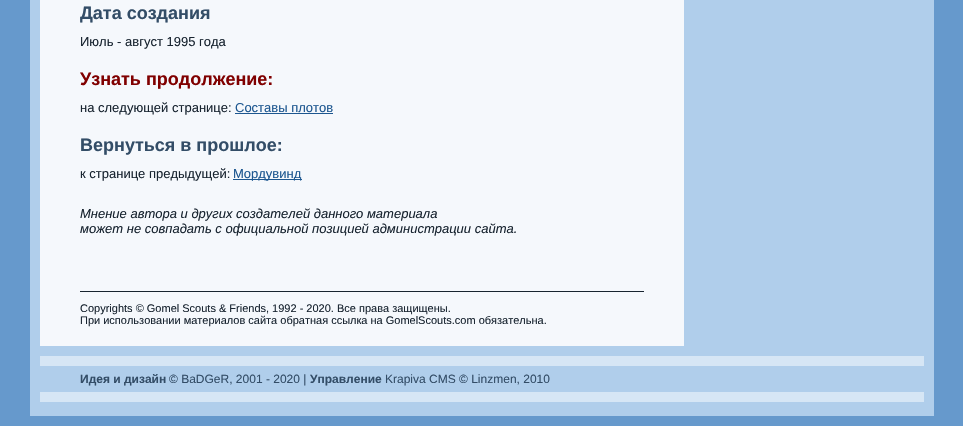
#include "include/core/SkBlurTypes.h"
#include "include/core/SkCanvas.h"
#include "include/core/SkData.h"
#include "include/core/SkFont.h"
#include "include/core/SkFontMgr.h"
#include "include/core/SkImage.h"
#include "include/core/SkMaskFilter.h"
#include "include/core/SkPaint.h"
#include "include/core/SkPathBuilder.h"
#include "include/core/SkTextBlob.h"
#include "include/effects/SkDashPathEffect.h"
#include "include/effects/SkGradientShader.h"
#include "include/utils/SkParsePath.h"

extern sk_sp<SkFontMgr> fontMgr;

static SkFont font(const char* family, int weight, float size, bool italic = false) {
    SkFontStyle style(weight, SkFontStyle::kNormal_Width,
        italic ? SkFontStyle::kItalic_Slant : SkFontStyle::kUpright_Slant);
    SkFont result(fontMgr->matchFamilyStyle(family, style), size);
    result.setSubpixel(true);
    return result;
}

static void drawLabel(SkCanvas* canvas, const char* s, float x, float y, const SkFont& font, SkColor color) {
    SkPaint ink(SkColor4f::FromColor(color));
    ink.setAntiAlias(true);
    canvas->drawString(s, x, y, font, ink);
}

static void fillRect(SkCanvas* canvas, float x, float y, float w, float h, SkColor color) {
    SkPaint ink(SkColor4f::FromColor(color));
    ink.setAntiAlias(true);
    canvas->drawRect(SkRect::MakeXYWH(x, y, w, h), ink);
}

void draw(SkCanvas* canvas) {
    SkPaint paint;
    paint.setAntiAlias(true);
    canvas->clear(0xFF6699CC);
    fillRect(canvas, 684, 0, 250, 346, 0xFFB0CEEB);
    fillRect(canvas, 40, 346, 894, 10, 0xFFB0CEEB);
    fillRect(canvas, 30, 0, 10, 402, 0xFFB0CEEB);
    fillRect(canvas, 40, 0, 644, 346, 0xFFF5F8FC);
    SkFont font1 = font("Liberation Sans", 700, 18);
    drawLabel(canvas, "Дата создания", 80, 19, font1, 0xFF334D67);
    SkFont font2 = font("Liberation Sans", 400, 13);
    drawLabel(canvas, "Июль - август 1995 года", 80, 46, font2, 0xFF182430);
    drawLabel(canvas, "Узнать продолжение:", 80, 85, font1, 0xFF800000);
    drawLabel(canvas, "на следующей странице:", 80, 112, font2, 0xFF182430);
    drawLabel(canvas, "Составы плотов", 235, 112, font2, 0xFF1D5790);
    fillRect(canvas, 235, 113, 98, 1, 0xFF1D5790);
    drawLabel(canvas, "Вернуться в прошлое:", 80, 151, font1, 0xFF334D67);
    drawLabel(canvas, "к странице предыдущей:", 80, 178, font2, 0xFF182430);
    fillRect(canvas, 233, 179, 69, 1, 0xFF1D5790);
    drawLabel(canvas, "Мордувинд", 233, 178, font2, 0xFF1D5790);
    SkFont font3 = font("Liberation Sans", 400, 13, true);
    drawLabel(canvas, "Мнение автора и других создателей данного материала", 80, 218, font3, 0xFF182430);
    drawLabel(canvas, "может не совпадать с официальной позицией администрации сайта.", 80, 233, font3, 0xFF182430);
    fillRect(canvas, 80, 291, 564, 1, 0xFF182430);
    SkFont font4 = font("Liberation Sans", 400, 11);
    drawLabel(canvas, "Copyrights © Gomel Scouts & Friends, 1992 - 2020. Все права защищены.", 80, 312, font4, 0xFF182430);
    drawLabel(canvas, "При использовании материалов сайта обратная ссылка на GomelScouts.com обязательна.", 80, 324, font4, 0xFF182430);
    fillRect(canvas, 924, 356, 10, 46, 0xFFB0CEEB);
    fillRect(canvas, 40, 356, 884, 46, 0xFFD6E6F5);
    fillRect(canvas, 40, 366, 884, 26, 0xFFB0CEEB);
    SkFont font5 = font("Liberation Sans", 700, 12);
    drawLabel(canvas, "Идея и дизайн", 80, 383, font5, 0xFF334D67);
    SkFont font6 = font("Liberation Sans", 400, 12);
    drawLabel(canvas, "© BaDGeR, 2001 - 2020 |", 169, 383, font6, 0xFF334D67);
    drawLabel(canvas, "Управление", 310, 383, font5, 0xFF334D67);
    drawLabel(canvas, "Krapiva CMS © Linzmen, 2010", 385, 383, font6, 0xFF334D67);
    fillRect(canvas, 30, 402, 904, 14, 0xFFB0CEEB);
}
